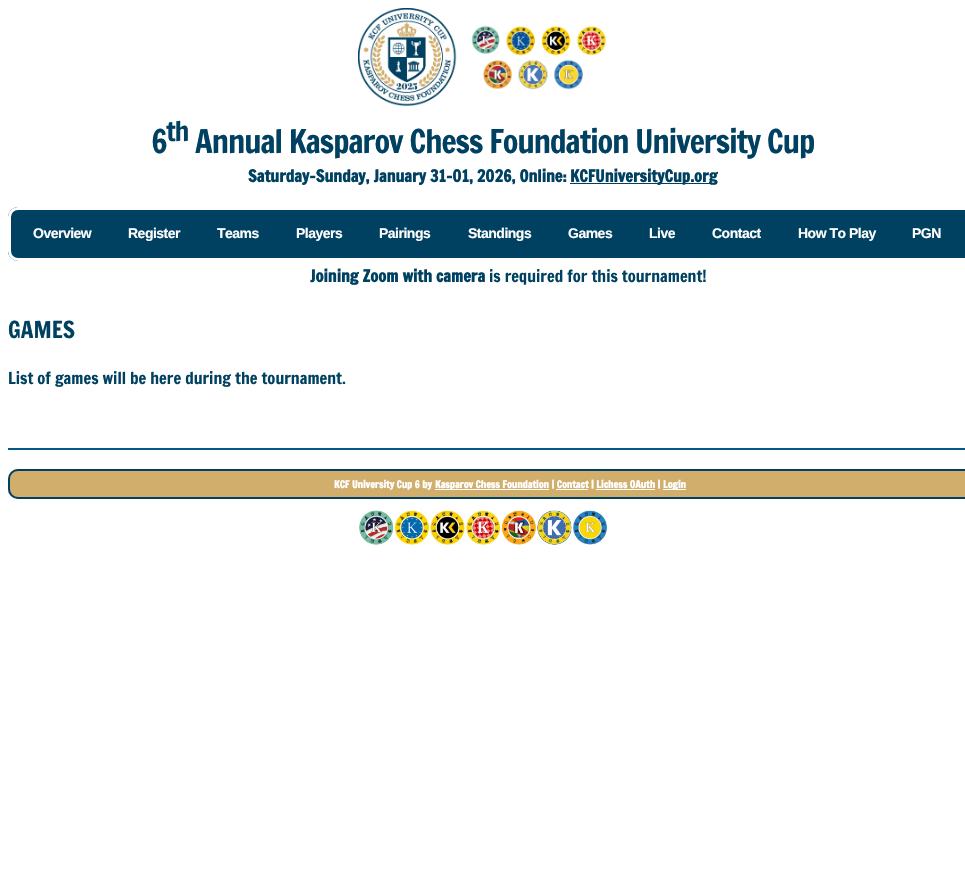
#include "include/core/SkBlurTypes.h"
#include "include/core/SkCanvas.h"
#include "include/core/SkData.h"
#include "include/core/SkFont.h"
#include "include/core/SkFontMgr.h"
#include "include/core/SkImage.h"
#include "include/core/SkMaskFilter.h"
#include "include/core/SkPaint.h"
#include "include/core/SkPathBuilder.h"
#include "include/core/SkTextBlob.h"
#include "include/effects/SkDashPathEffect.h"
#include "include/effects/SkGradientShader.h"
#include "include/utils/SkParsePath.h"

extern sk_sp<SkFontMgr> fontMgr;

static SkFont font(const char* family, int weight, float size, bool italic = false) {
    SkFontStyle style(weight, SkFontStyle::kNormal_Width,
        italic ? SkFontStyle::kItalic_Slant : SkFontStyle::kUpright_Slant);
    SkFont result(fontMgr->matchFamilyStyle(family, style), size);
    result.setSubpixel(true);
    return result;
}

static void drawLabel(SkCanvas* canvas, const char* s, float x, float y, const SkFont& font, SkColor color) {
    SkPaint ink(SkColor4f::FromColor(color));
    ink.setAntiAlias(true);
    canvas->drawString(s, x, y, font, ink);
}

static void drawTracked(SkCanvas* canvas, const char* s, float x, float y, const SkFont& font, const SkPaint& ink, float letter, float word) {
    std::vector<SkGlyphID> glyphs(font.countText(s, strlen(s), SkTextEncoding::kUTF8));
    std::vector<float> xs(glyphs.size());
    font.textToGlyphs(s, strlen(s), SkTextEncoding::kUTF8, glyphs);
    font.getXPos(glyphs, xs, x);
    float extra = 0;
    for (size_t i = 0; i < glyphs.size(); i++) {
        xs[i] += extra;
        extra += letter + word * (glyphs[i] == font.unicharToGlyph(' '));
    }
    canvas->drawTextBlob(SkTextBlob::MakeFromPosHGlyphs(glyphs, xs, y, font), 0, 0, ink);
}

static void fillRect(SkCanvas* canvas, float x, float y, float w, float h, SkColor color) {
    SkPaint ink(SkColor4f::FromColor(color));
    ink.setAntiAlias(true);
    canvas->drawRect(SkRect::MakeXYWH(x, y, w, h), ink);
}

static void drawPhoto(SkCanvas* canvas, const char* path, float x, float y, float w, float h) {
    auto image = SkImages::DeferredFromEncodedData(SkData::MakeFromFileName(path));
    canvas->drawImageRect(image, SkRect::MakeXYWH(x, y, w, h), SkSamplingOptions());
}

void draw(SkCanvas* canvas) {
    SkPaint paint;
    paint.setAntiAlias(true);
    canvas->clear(0xFFFFFFFF);
    drawPhoto(canvas, "assets/img1.png", 358, 8, 249, 99);
    SkFont font1 = font("Francois One", 400, 32);
    paint.setColor(0xFF004161);
    drawTracked(canvas, "6", 151, 153, font1, paint, -1, 0);
    SkFont font2 = font("Francois One", 400, 27);
    drawTracked(canvas, "th", 166, 141, font2, paint, -1, 0);
    drawTracked(canvas, "Annual Kasparov Chess Foundation University Cup", 195, 153, font1, paint, -1, 0);
    SkFont font3 = font("Francois One", 700, 16.4f);
    drawLabel(canvas, "Saturday-Sunday, January 31-01, 2026, Online:", 248, 182, font3, 0xFF004161);
    fillRect(canvas, 570, 183, 147, 1, 0xFF004161);
    drawLabel(canvas, "KCFUniversityCup.org", 570, 182, font3, 0xFF004161);
    drawPhoto(canvas, "assets/img2.png", 8, 207, 957, 54);
    paint.setStroke(true);
    paint.setStrokeWidth(3);
    paint.setColor(0xFFFFFFFF);
    canvas->drawRoundRect(SkRect::MakeXYWH(9.5f, 208.5f, 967, 51), 8.5f, 8.5f, paint);
    SkFont font4 = font("Liberation Sans", 700, 14);
    paint.setStroke(false);
    drawTracked(canvas, "Overview", 33, 238, font4, paint, -0.5f, 0);
    drawTracked(canvas, "Register", 128, 238, font4, paint, -0.5f, 0);
    drawTracked(canvas, "Teams", 217, 238, font4, paint, -0.5f, 0);
    drawTracked(canvas, "Players", 296, 238, font4, paint, -0.5f, 0);
    drawTracked(canvas, "Pairings", 379, 238, font4, paint, -0.5f, 0);
    drawTracked(canvas, "Standings", 468, 238, font4, paint, -0.5f, 0);
    drawTracked(canvas, "Games", 568, 238, font4, paint, -0.5f, 0);
    drawTracked(canvas, "Live", 649, 238, font4, paint, -0.5f, 0);
    drawTracked(canvas, "Contact", 712, 238, font4, paint, -0.5f, 0);
    drawTracked(canvas, "How To Play", 798, 238, font4, paint, -0.5f, 0);
    drawTracked(canvas, "PGN", 912, 238, font4, paint, -0.5f, 0);
    drawLabel(canvas, "Joining Zoom with camera", 310, 282, font3, 0xFF004161);
    SkFont font5 = font("Francois One", 400, 16.4f);
    drawLabel(canvas, "is required for this tournament!", 489, 282, font5, 0xFF004161);
    SkFont font6 = font("Francois One", 400, 23);
    drawLabel(canvas, "GAMES", 8, 338, font6, 0xFF004161);
    drawLabel(canvas, "List of games will be here during the tournament.", 8, 384, font5, 0xFF004161);
    fillRect(canvas, 8, 448, 957, 2, 0xFF015985);
    drawPhoto(canvas, "assets/img3.png", 8, 469, 957, 30);
    paint.setStroke(true);
    paint.setStrokeWidth(2);
    paint.setColor(0xFF004161);
    canvas->drawRoundRect(SkRect::MakeXYWH(9, 470, 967, 28), 9, 9, paint);
    SkFont font7 = font("Francois One", 700, 10);
    drawLabel(canvas, "KCF University Cup 6 by", 334, 488, font7, 0xFFFFFFFF);
    fillRect(canvas, 435, 489, 114, 1, 0xFFFFFFFF);
    drawLabel(canvas, "Kasparov Chess Foundation | Contact | Lichess OAuth |", 435, 488, font7, 0xFFFFFFFF);
    fillRect(canvas, 663, 489, 23, 1, 0xFFFFFFFF);
    drawLabel(canvas, "Login", 663, 488, font7, 0xFFFFFFFF);
    fillRect(canvas, 556, 489, 32, 1, 0xFFFFFFFF);
    fillRect(canvas, 596, 489, 59, 1, 0xFFFFFFFF);
    drawPhoto(canvas, "assets/img4.png", 359, 510, 248, 35);
}
